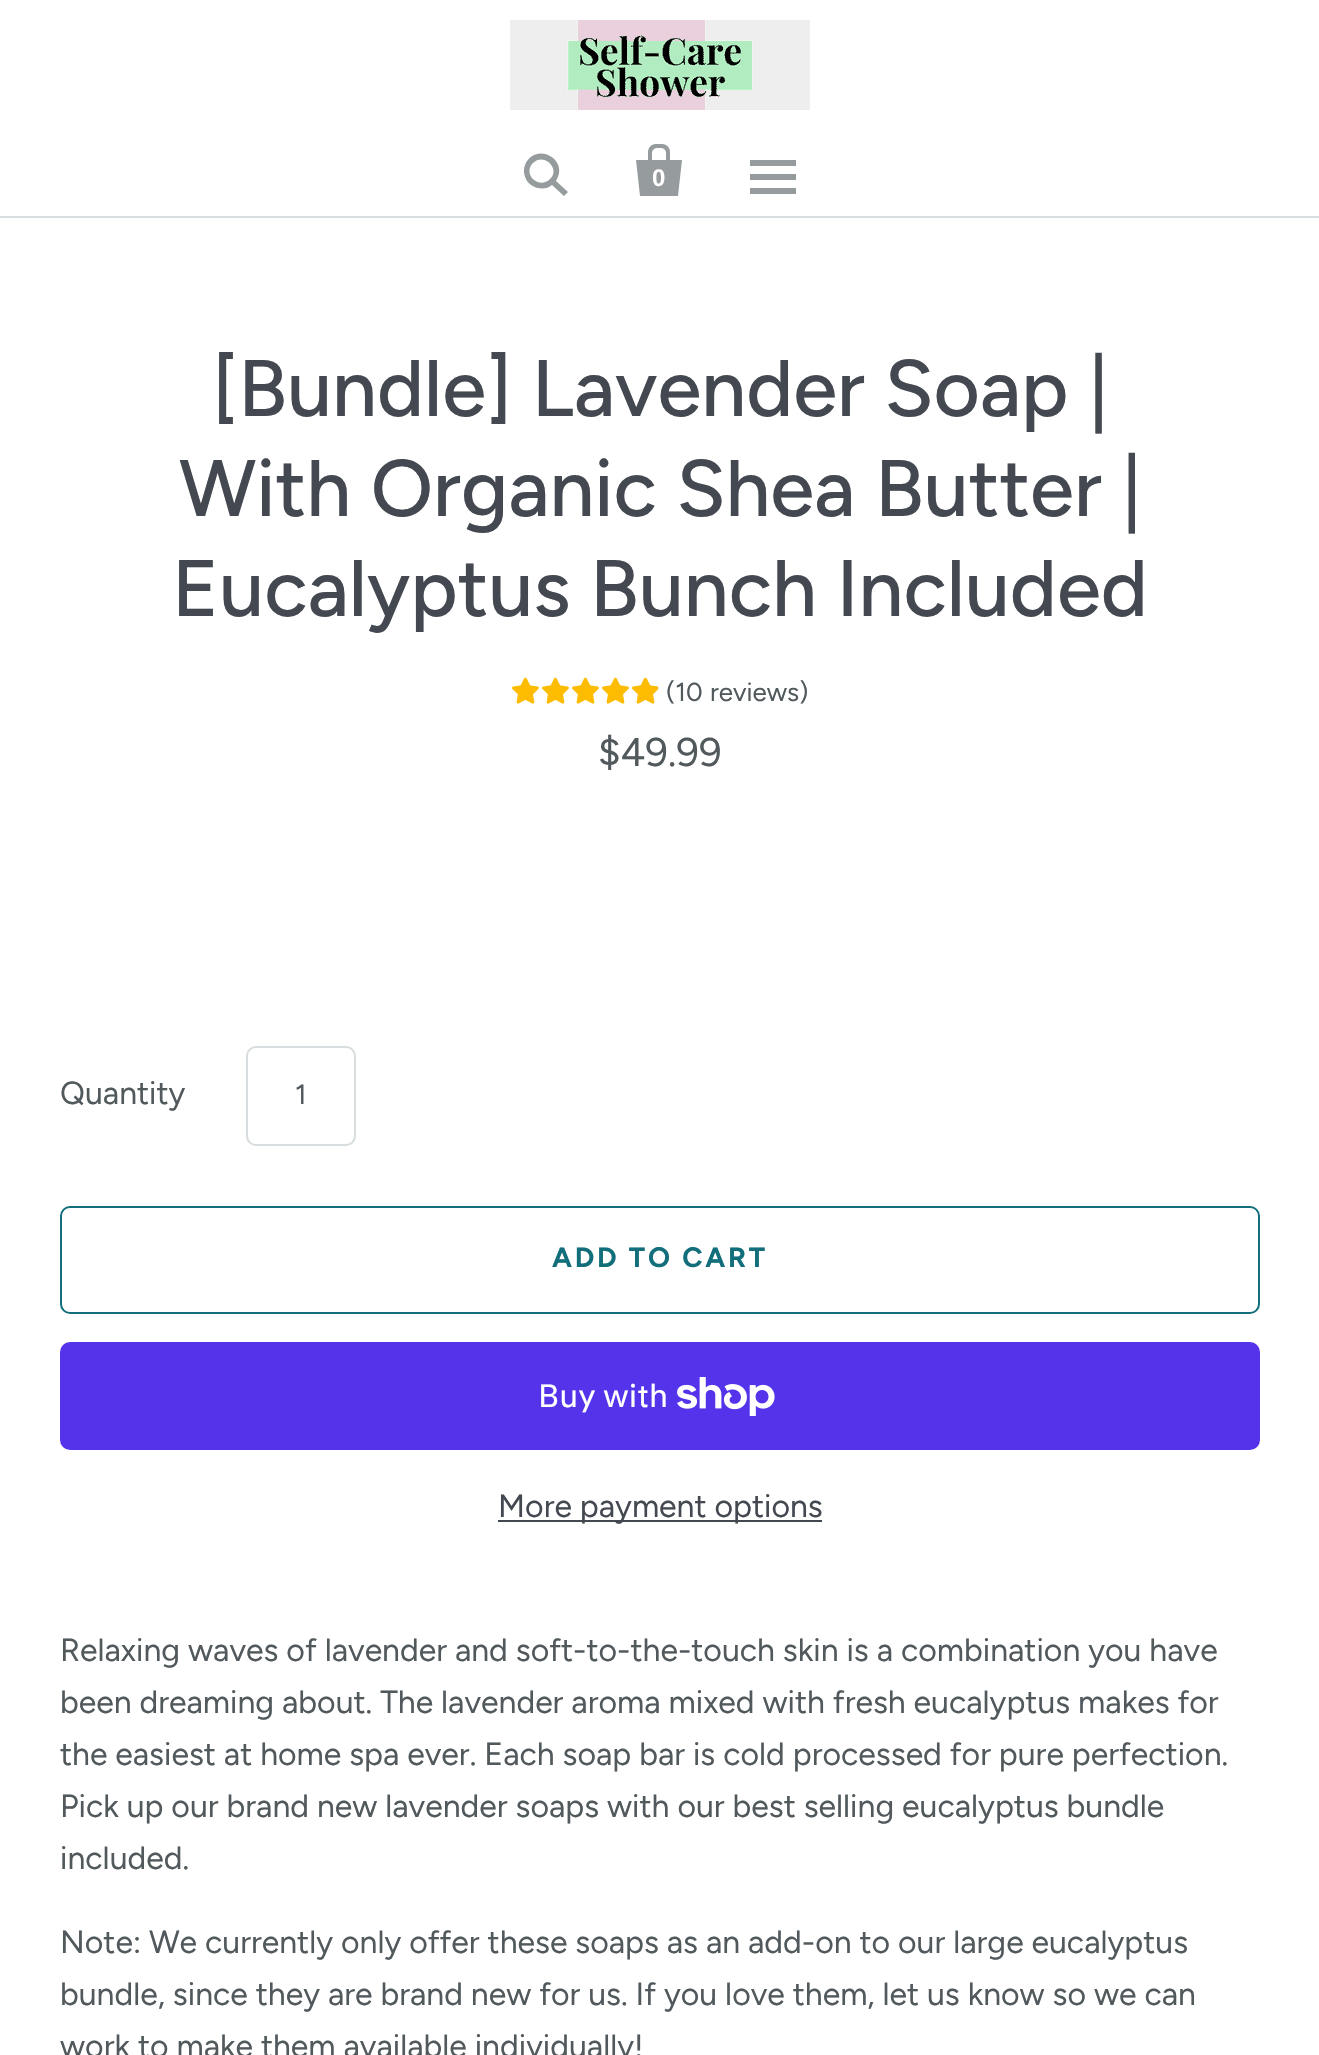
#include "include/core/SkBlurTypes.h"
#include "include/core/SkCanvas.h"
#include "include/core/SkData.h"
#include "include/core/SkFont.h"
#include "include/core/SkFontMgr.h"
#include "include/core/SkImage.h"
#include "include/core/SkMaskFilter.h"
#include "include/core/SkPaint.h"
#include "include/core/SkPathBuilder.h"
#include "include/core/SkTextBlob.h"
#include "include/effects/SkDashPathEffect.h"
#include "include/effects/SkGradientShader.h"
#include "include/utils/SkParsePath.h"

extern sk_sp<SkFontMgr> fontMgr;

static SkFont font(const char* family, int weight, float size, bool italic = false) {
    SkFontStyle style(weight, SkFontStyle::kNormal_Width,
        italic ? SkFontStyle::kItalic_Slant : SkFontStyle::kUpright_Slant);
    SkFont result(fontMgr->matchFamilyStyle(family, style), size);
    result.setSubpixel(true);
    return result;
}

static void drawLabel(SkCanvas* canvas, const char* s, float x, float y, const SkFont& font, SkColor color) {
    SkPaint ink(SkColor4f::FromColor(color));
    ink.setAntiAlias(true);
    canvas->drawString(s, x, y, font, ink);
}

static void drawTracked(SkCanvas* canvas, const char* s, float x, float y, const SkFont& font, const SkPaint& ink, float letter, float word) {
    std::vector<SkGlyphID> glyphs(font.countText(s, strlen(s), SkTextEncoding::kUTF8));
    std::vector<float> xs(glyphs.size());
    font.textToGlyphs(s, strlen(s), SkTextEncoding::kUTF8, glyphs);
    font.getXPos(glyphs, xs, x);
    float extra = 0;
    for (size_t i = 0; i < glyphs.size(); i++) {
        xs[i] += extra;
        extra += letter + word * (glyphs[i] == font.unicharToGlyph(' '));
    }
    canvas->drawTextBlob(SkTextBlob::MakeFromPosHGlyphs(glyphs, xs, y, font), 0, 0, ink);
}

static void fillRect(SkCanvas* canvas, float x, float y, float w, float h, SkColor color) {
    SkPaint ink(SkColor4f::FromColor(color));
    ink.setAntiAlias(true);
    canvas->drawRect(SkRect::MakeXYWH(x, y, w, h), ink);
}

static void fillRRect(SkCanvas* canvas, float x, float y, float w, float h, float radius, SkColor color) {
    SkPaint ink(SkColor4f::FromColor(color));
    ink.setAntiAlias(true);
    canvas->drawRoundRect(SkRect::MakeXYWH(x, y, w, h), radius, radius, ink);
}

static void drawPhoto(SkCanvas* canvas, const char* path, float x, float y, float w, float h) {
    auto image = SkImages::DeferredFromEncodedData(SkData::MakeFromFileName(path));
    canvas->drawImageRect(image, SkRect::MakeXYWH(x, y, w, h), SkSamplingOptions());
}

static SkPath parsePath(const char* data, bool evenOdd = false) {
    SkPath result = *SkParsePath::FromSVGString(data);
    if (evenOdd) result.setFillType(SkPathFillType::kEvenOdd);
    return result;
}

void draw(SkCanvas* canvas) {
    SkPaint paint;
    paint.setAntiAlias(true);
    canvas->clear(0xFFFFFFFF);
    fillRect(canvas, 0, 216, 1319, 2, 0xFFD7DCDE);
    fillRect(canvas, 510, 20, 300, 90, 0xFFEEEEEF);
    drawPhoto(canvas, "assets/img1.png", 567, 20, 186, 90);
    paint.setColor(0xFF969B9D);
    canvas->drawPath(parsePath("M556 181C570 159 535 141 525 165C523 170 524 176 527 181C533 189 545 191 552 185L564 196L568 192ZM550 179C539 190 522 174 533 163C544 152 561 169 550 179Z"), paint);
    drawPhoto(canvas, "assets/img2.png", 636, 144, 46, 52);
    SkFont font1 = font("Liberation Sans", 700, 24);
    drawLabel(canvas, "0", 652, 186, font1, 0xFFFFFFFF);
    fillRect(canvas, 750, 174, 46, 6, 0xFF969B9D);
    fillRect(canvas, 750, 160, 46, 6, 0xFF969B9D);
    fillRect(canvas, 750, 188, 46, 6, 0xFF969B9D);
    SkFont font2 = font("Figtree", 500, 80);
    drawLabel(canvas, "[Bundle] Lavender Soap |", 212, 416, font2, 0xFF444951);
    drawLabel(canvas, "With Organic Shea Butter |", 179, 516, font2, 0xFF444951);
    drawLabel(canvas, "Eucalyptus Bunch Included", 172, 616, font2, 0xFF444951);
    drawPhoto(canvas, "assets/img3.png", 512, 677, 27, 27);
    drawPhoto(canvas, "assets/img3.png", 542, 677, 27, 27);
    drawPhoto(canvas, "assets/img3.png", 572, 677, 27, 27);
    drawPhoto(canvas, "assets/img3.png", 602, 677, 27, 27);
    drawPhoto(canvas, "assets/img4.png", 632, 677, 27, 27);
    drawPhoto(canvas, "assets/img5.png", 632, 678, 26, 26);
    SkFont font3 = font("Figtree", 400, 26);
    drawLabel(canvas, "(10", 666, 701, font3, 0xFF51595D);
    drawLabel(canvas, "reviews)", 710, 701, font3, 0xFF51595D);
    SkFont font4 = font("Figtree", 400, 40);
    drawLabel(canvas, "$49.99", 598, 766, font4, 0xFF51595D);
    SkFont font5 = font("Figtree", 400, 32);
    drawLabel(canvas, "Quantity", 60, 1104, font5, 0xFF51595D);
    paint.setStroke(true);
    paint.setStrokeWidth(2);
    paint.setColor(0xFFD7DCDE);
    canvas->drawRoundRect(SkRect::MakeXYWH(247, 1047, 108, 98), 9, 9, paint);
    SkFont font6 = font("Figtree", 400, 28);
    drawLabel(canvas, "1", 295, 1104, font6, 0xFF51595D);
    paint.setColor(0xFF126E7A);
    canvas->drawRoundRect(SkRect::MakeXYWH(61, 1207, 1198, 106), 9, 9, paint);
    SkFont font7 = font("Figtree", 700, 28);
    paint.setStroke(false);
    drawTracked(canvas, "ADD TO CART", 552, 1267, font7, paint, 2.75f, 0);
    fillRRect(canvas, 60, 1342, 1200, 108, 10, 0xFF5433EB);
    SkFont font8 = font("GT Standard", 400, 32);
    drawLabel(canvas, "Buy with", 538, 1407, font8, 0xFFFFFFFF);
    drawPhoto(canvas, "assets/img6.png", 677, 1377, 98, 39);
    fillRect(canvas, 498, 1520, 324, 2, 0xFF444951);
    drawLabel(canvas, "More payment options", 498, 1517, font5, 0xFF444951);
    drawLabel(canvas, "Relaxing waves of lavender and soft-to-the-touch skin is a combination you have", 60, 1661, font5, 0xFF51595D);
    drawLabel(canvas, "been dreaming about. The lavender aroma mixed with fresh eucalyptus makes for", 60, 1713, font5, 0xFF51595D);
    drawLabel(canvas, "the easiest at home spa ever. Each soap bar is cold processed for pure perfection.", 60, 1765, font5, 0xFF51595D);
    drawLabel(canvas, "Pick up our brand new lavender soaps with our best selling eucalyptus bundle", 60, 1817, font5, 0xFF51595D);
    drawLabel(canvas, "included.", 60, 1869, font5, 0xFF51595D);
    drawLabel(canvas, "Note: We currently only offer these soaps as an add-on to our large eucalyptus", 60, 1953, font5, 0xFF51595D);
    drawLabel(canvas, "bundle, since they are brand new for us. If you love them, let us know so we can", 60, 2005, font5, 0xFF51595D);
    drawLabel(canvas, "work to make them available individually!", 60, 2057, font5, 0xFF51595D);
}
